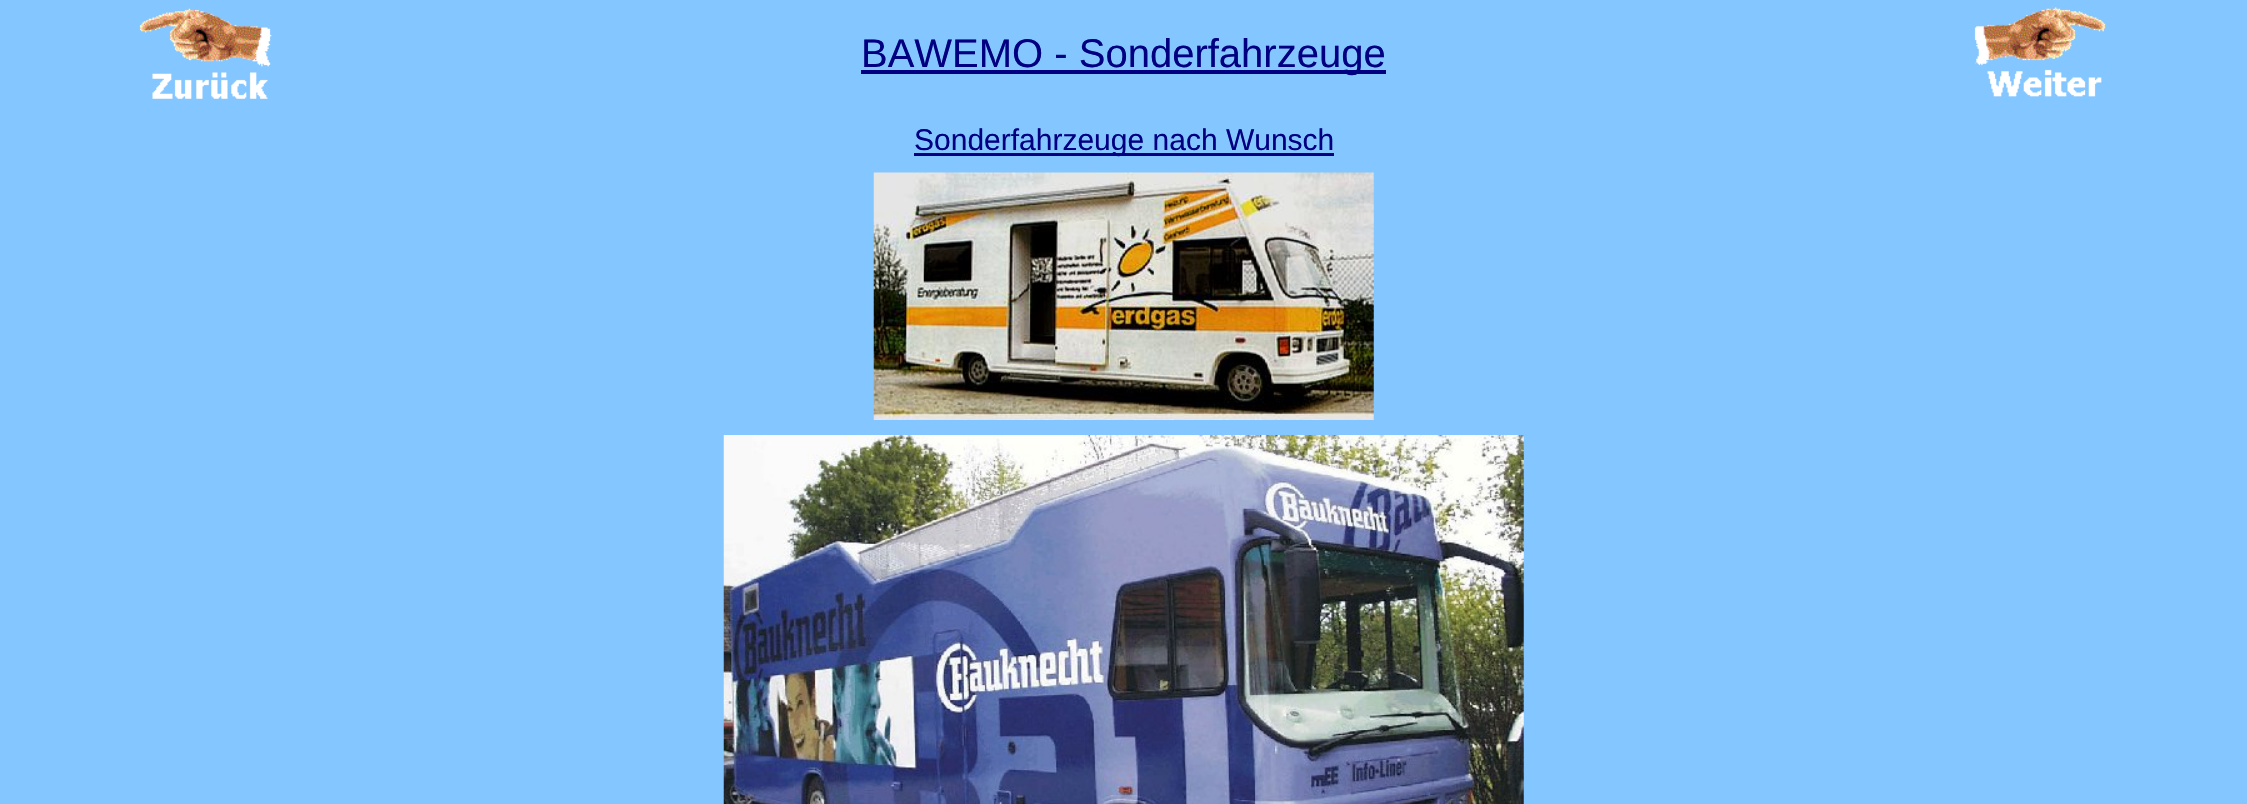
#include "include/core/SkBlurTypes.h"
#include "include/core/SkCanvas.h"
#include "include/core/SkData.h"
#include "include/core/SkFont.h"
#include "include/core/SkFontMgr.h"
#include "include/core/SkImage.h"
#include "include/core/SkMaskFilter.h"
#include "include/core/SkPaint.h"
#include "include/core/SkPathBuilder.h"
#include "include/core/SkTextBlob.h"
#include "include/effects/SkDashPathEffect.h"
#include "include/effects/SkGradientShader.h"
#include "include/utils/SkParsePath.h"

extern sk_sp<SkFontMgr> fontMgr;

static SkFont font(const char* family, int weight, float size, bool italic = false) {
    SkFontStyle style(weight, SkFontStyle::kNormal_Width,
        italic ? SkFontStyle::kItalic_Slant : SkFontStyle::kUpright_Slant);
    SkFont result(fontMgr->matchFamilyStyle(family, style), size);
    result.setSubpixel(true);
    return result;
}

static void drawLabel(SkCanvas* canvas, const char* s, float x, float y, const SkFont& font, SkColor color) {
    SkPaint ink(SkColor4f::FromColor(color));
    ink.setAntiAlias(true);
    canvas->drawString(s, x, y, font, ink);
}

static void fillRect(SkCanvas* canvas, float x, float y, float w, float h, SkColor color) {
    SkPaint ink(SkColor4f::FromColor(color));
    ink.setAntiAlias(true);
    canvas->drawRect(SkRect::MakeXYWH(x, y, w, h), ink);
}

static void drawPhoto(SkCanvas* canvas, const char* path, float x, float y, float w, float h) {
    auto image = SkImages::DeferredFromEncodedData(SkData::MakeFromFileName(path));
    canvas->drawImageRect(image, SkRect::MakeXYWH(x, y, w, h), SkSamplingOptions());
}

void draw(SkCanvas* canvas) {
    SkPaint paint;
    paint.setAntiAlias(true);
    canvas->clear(0xFF84C6FF);
    drawPhoto(canvas, "assets/img1.png", 139, 8, 133, 91);
    fillRect(canvas, 861, 70, 525, 4, 0xFF000080);
    SkFont font1 = font("Liberation Sans", 400, 40);
    drawLabel(canvas, "BAWEMO - Sonderfahrzeuge", 861, 67, font1, 0xFF000080);
    drawPhoto(canvas, "assets/img2.png", 1974, 7, 132, 90);
    fillRect(canvas, 914, 153, 420, 3, 0xFF000080);
    SkFont font2 = font("Liberation Sans", 400, 30);
    drawLabel(canvas, "Sonderfahrzeuge nach Wunsch", 914, 150, font2, 0xFF000080);
    drawPhoto(canvas, "assets/img3.png", 873, 172, 501, 248);
    drawPhoto(canvas, "assets/img4.png", 723, 435, 801, 369);
}
